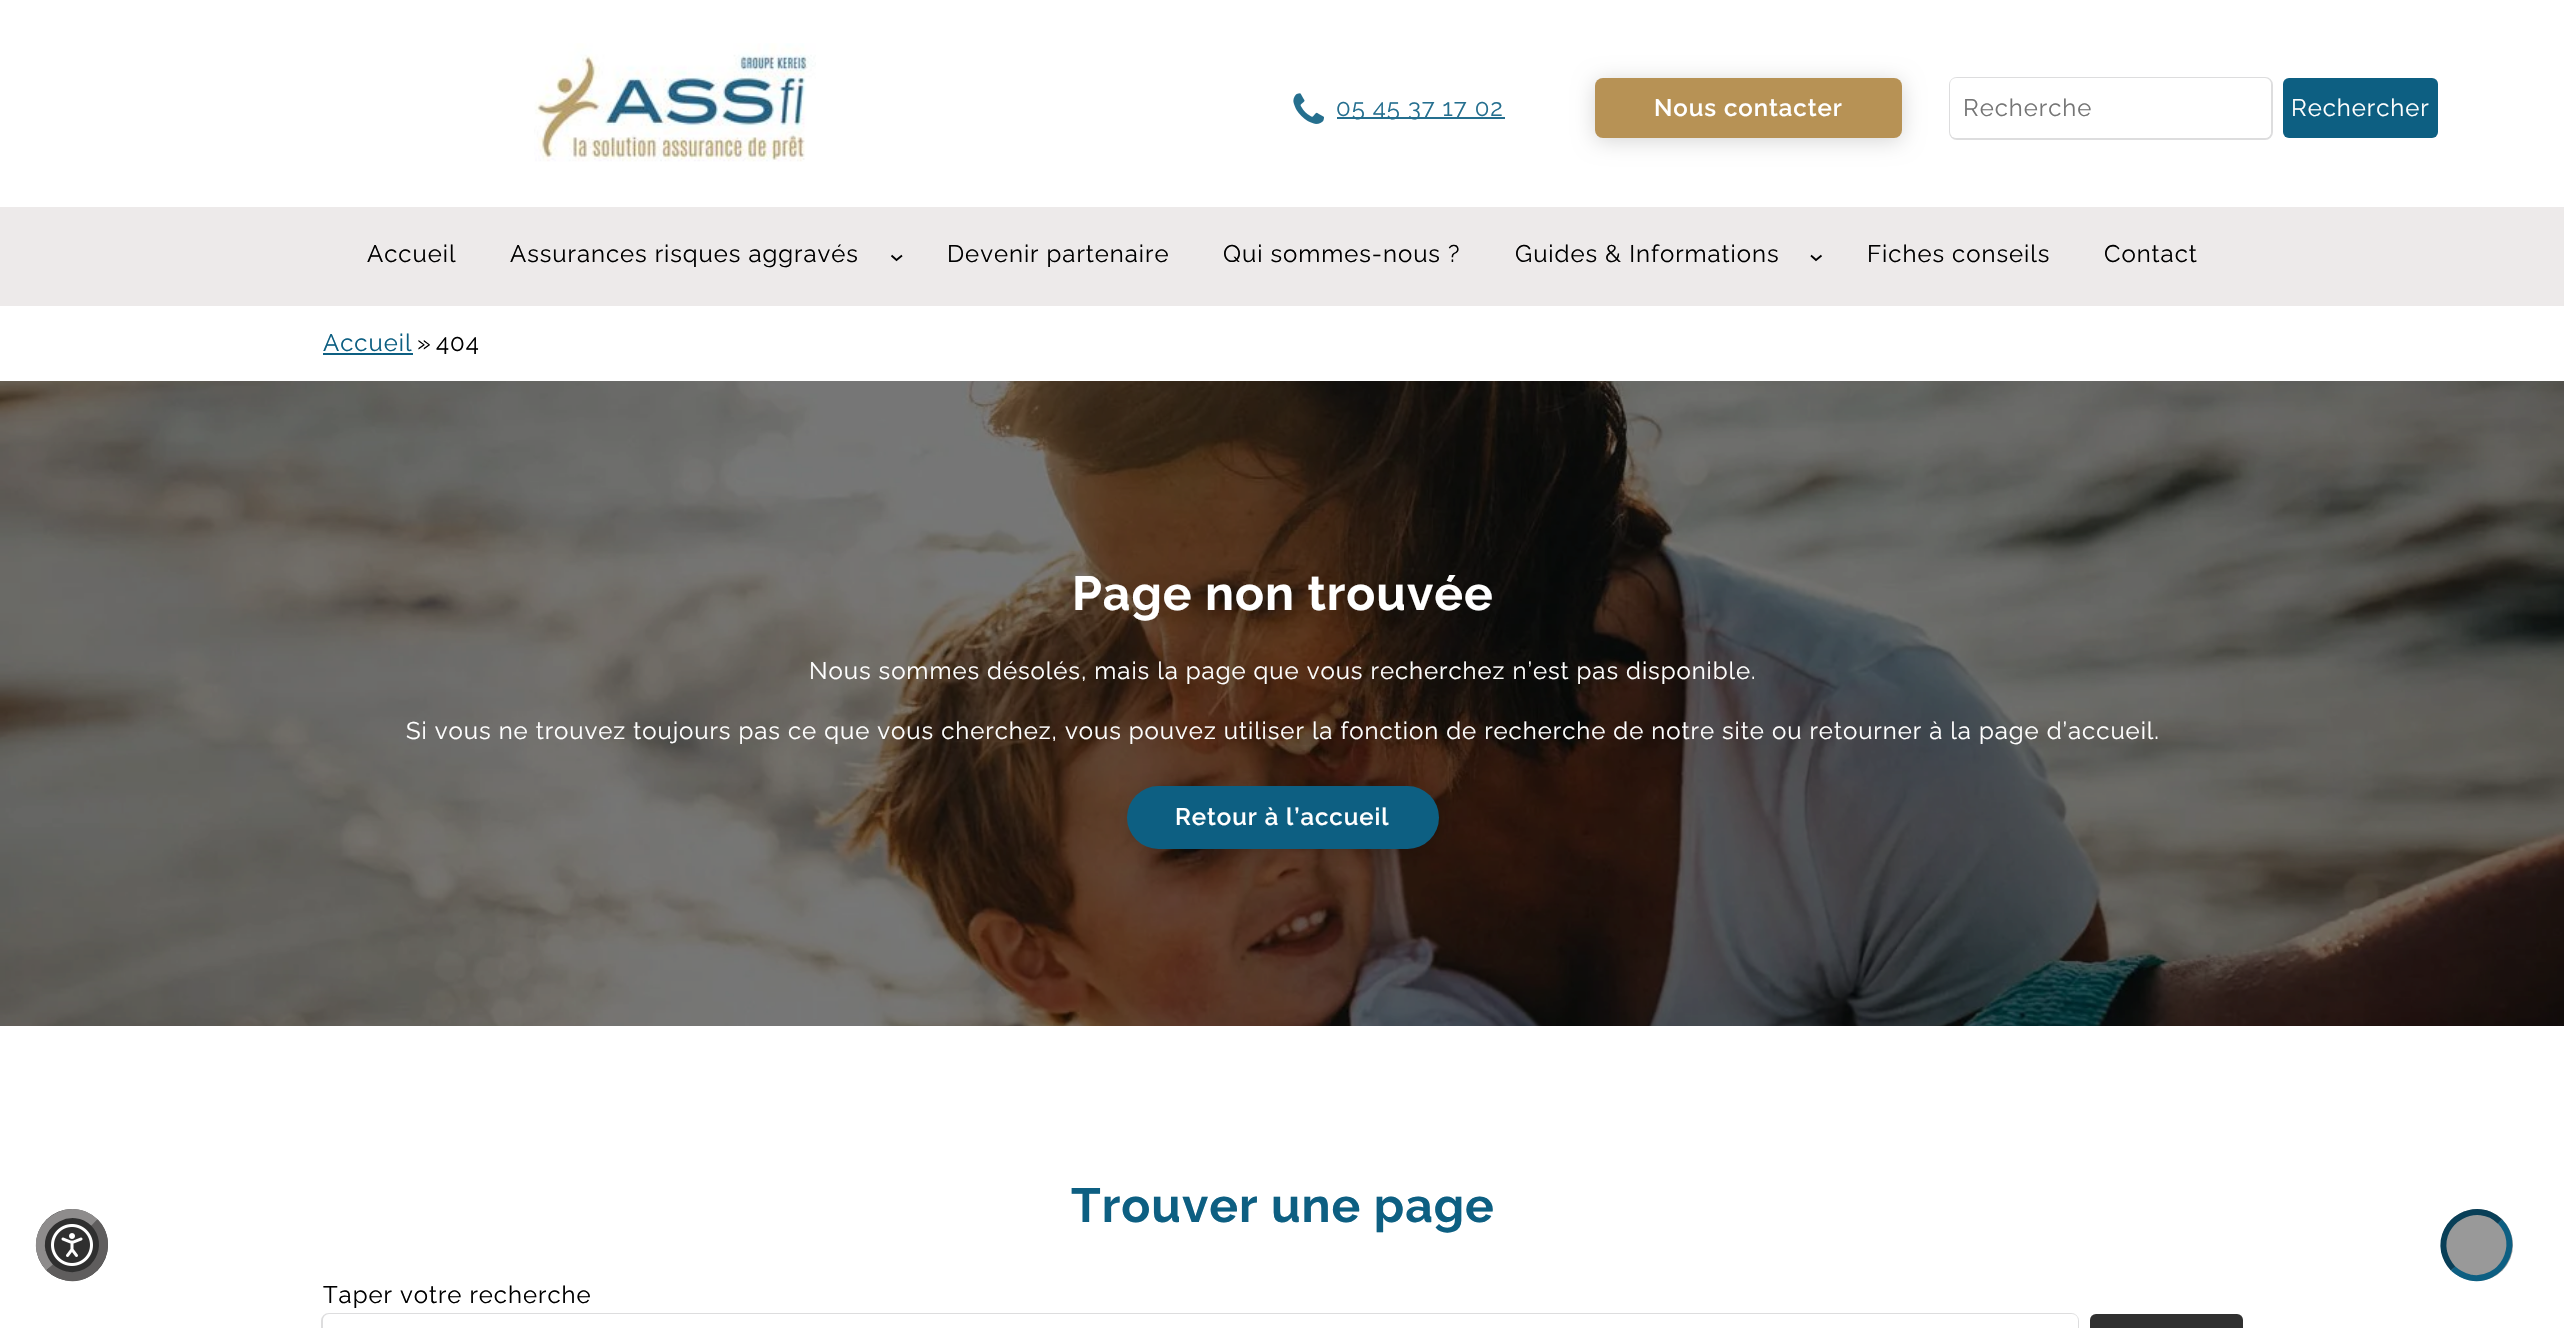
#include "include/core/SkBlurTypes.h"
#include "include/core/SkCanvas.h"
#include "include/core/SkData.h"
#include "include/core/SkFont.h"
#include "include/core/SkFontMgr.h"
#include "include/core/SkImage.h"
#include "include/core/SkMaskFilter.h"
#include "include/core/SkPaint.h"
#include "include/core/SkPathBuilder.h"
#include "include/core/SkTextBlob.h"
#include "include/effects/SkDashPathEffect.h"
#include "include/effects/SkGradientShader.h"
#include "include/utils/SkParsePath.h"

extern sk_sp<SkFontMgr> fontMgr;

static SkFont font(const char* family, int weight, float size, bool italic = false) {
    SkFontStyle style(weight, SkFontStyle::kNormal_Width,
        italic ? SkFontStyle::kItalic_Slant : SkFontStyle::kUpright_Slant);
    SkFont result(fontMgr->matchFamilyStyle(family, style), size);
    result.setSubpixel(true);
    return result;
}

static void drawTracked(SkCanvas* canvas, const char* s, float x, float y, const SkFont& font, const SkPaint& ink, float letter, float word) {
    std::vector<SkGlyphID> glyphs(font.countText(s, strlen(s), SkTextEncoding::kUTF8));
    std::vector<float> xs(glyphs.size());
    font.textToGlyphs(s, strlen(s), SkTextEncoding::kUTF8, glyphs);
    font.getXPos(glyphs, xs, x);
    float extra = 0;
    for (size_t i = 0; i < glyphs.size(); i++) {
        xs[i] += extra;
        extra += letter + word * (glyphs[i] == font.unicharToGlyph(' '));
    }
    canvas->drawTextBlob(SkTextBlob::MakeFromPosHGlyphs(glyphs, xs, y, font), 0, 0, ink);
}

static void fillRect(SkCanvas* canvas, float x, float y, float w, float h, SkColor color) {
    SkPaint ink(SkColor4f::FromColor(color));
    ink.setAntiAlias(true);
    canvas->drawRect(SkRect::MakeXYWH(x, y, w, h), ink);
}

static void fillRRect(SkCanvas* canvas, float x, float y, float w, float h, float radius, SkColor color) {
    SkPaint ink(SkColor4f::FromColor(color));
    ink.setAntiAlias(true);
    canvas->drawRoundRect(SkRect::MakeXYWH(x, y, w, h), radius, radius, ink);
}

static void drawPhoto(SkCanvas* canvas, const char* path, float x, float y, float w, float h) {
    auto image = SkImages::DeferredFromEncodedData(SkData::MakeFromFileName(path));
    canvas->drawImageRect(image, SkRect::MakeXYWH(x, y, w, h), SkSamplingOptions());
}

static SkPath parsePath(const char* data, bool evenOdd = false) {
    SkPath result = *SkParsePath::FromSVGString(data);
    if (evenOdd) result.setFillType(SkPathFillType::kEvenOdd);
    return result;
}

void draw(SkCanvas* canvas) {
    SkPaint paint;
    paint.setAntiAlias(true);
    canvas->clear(0xFFFFFFFF);
    drawPhoto(canvas, "assets/img1.png", 534, 43, 282, 119);
    drawPhoto(canvas, "assets/img2.png", 1293, 93, 31, 31);
    fillRect(canvas, 1337, 117, 168, 2, 0xFF256F8F);
    SkFont font1 = font("Raleway", 400, 24);
    paint.setColor(0xFF256F8F);
    drawTracked(canvas, "05 45 37 17 02", 1336, 116, font1, paint, 0.96f, 0);
    paint.setColor(0x29000000);
    paint.setMaskFilter(SkMaskFilter::MakeBlur(kNormal_SkBlurStyle, 10.5f));
    canvas->drawRoundRect(SkRect::MakeXYWH(1595, 81, 307, 60), 8, 8, paint);
    paint.setMaskFilter(nullptr);
    fillRRect(canvas, 1595, 78, 307, 60, 8, 0xFFB79255);
    SkFont font2 = font("Raleway", 600, 24);
    paint.setColor(0xFFFFFFFF);
    drawTracked(canvas, "Nous contacter", 1654, 116, font2, paint, 0.96f, 0);
    paint.setStroke(true);
    paint.setStrokeWidth(2);
    paint.setColor(0xFFDDDDDE);
    canvas->drawRoundRect(SkRect::MakeXYWH(1950, 78, 322, 61), 7, 7, paint);
    fillRRect(canvas, 1950, 78, 321, 60, 6, 0xFFFFFFFF);
    paint.setStroke(false);
    paint.setColor(0xFF757575);
    drawTracked(canvas, "Recherche", 1963, 116, font1, paint, 0.96f, 0);
    fillRRect(canvas, 2283, 78, 155, 60, 6, 0xFF0D5F82);
    paint.setColor(0xFFFFFFFF);
    drawTracked(canvas, "Rechercher", 2291, 116, font1, paint, 0.96f, 0);
    fillRect(canvas, 0, 207, 2564, 99, 0xFFEDEAEA);
    paint.setColor(0xFF000000);
    drawTracked(canvas, "Accueil", 367, 262, font1, paint, 0.96f, 0);
    drawTracked(canvas, "Assurances risques aggravés", 510, 262, font1, paint, 0.96f, 0);
    paint.setStroke(true);
    paint.setStrokeWidth(1.8f);
    canvas->drawPath(parsePath("M891.5 255.5L896.5 260L902 255.5"), paint);
    paint.setStroke(false);
    drawTracked(canvas, "Devenir partenaire", 947, 262, font1, paint, 0.96f, 0);
    drawTracked(canvas, "Qui sommes-nous ?", 1223, 262, font1, paint, 0.96f, 0);
    drawTracked(canvas, "Guides & Informations", 1515, 262, font1, paint, 0.96f, 0);
    paint.setStroke(true);
    canvas->drawPath(parsePath("M1811 255.5L1816 260L1821.5 255.5"), paint);
    paint.setStroke(false);
    drawTracked(canvas, "Fiches conseils", 1867, 262, font1, paint, 0.96f, 0);
    drawTracked(canvas, "Contact", 2104, 262, font1, paint, 0.96f, 0);
    paint.setColor(0xFF999999);
    canvas->drawCircle(2477, 1245, 36, paint);
    paint.setStroke(true);
    paint.setStrokeWidth(6);
    paint.setColor(0xFF0D5F82);
    canvas->drawPath(parsePath("M2500 1221.5C2522.5 1244.5 2501.5 1283.5 2470 1277.5C2463.5 1276 2458 1273 2453 1268.5"), paint);
    paint.setColor(0xFF093F57);
    canvas->drawPath(parsePath("M2453 1268.5C2448.5 1263.5 2445.5 1258 2444 1251.5C2438 1220 2477 1199 2500 1221.5"), paint);
    paint.setStroke(false);
    paint.setColor(0xFF2F2F2F);
    canvas->drawCircle(72, 1245, 36, paint);
    paint.setStroke(true);
    paint.setStrokeWidth(9);
    paint.setColor(0xFF5F5D5D);
    canvas->drawPath(parsePath("M94.5 1222.5C116 1244.5 96 1282 66 1276C60 1274.5 54 1271.5 49.5 1267.5"), paint);
    paint.setColor(0xFF8E8C8C);
    canvas->drawPath(parsePath("M49.5 1267.5C45.5 1263 42.5 1257 41 1251C35 1221 72.5 1201 94.5 1222.5"), paint);
    drawPhoto(canvas, "assets/img3.png", 51, 1224, 42, 42);
    paint.setStroke(false);
    paint.setColor(0xFF0D5F82);
    drawTracked(canvas, "Accueil", 323, 351, font1, paint, 0.96f, 0);
    fillRect(canvas, 323, 353, 90, 2, 0xFF0D5F82);
    paint.setColor(0xFF000000);
    drawTracked(canvas, "»", 417, 351, font1, paint, 0.96f, 0);
    drawTracked(canvas, "404", 436, 351, font1, paint, 0.96f, 0);
    drawPhoto(canvas, "assets/img4.png", 0, 381, 2564, 645);
    SkFont font3 = font("Raleway", 700, 48);
    paint.setColor(0xFFFFFFFF);
    drawTracked(canvas, "Page non trouvée", 1072, 610, font3, paint, 0.96f, 0);
    drawTracked(canvas, "Nous sommes désolés, mais la page que vous recherchez n’est pas disponible.", 809, 679, font1, paint, 0.96f, 0);
    drawTracked(canvas, "Si vous ne trouvez toujours pas ce que vous cherchez, vous pouvez utiliser la fonction de recherche de notre site ou retourner à la page d’accueil.", 406, 739, font1, paint, 0.96f, 0);
    paint.setColor(0x29000000);
    paint.setMaskFilter(SkMaskFilter::MakeBlur(kNormal_SkBlurStyle, 10.5f));
    canvas->drawRoundRect(SkRect::MakeXYWH(1127, 789, 312, 63), 31.5f, 31.5f, paint);
    paint.setMaskFilter(nullptr);
    fillRRect(canvas, 1127, 786, 312, 63, 31.5f, 0xFF0D5F82);
    paint.setColor(0xFFFFFFFF);
    drawTracked(canvas, "Retour à l’accueil", 1175, 825, font2, paint, 0.96f, 0);
    paint.setColor(0xFF0D5F82);
    drawTracked(canvas, "Trouver une page", 1071, 1222, font3, paint, 0.96f, 0);
    paint.setColor(0xFF000000);
    drawTracked(canvas, "Taper votre recherche", 323, 1303, font1, paint, 0.96f, 0);
    paint.setStroke(true);
    paint.setStrokeWidth(2);
    paint.setColor(0xFFDDDDDE);
    canvas->drawRoundRect(SkRect::MakeXYWH(322, 1314, 1756, 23), 7, 7, paint);
    fillRRect(canvas, 323, 1314, 1755, 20, 6, 0xFFFFFFFF);
    fillRRect(canvas, 2090, 1314, 153, 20, 6, 0xFF303030);
}
